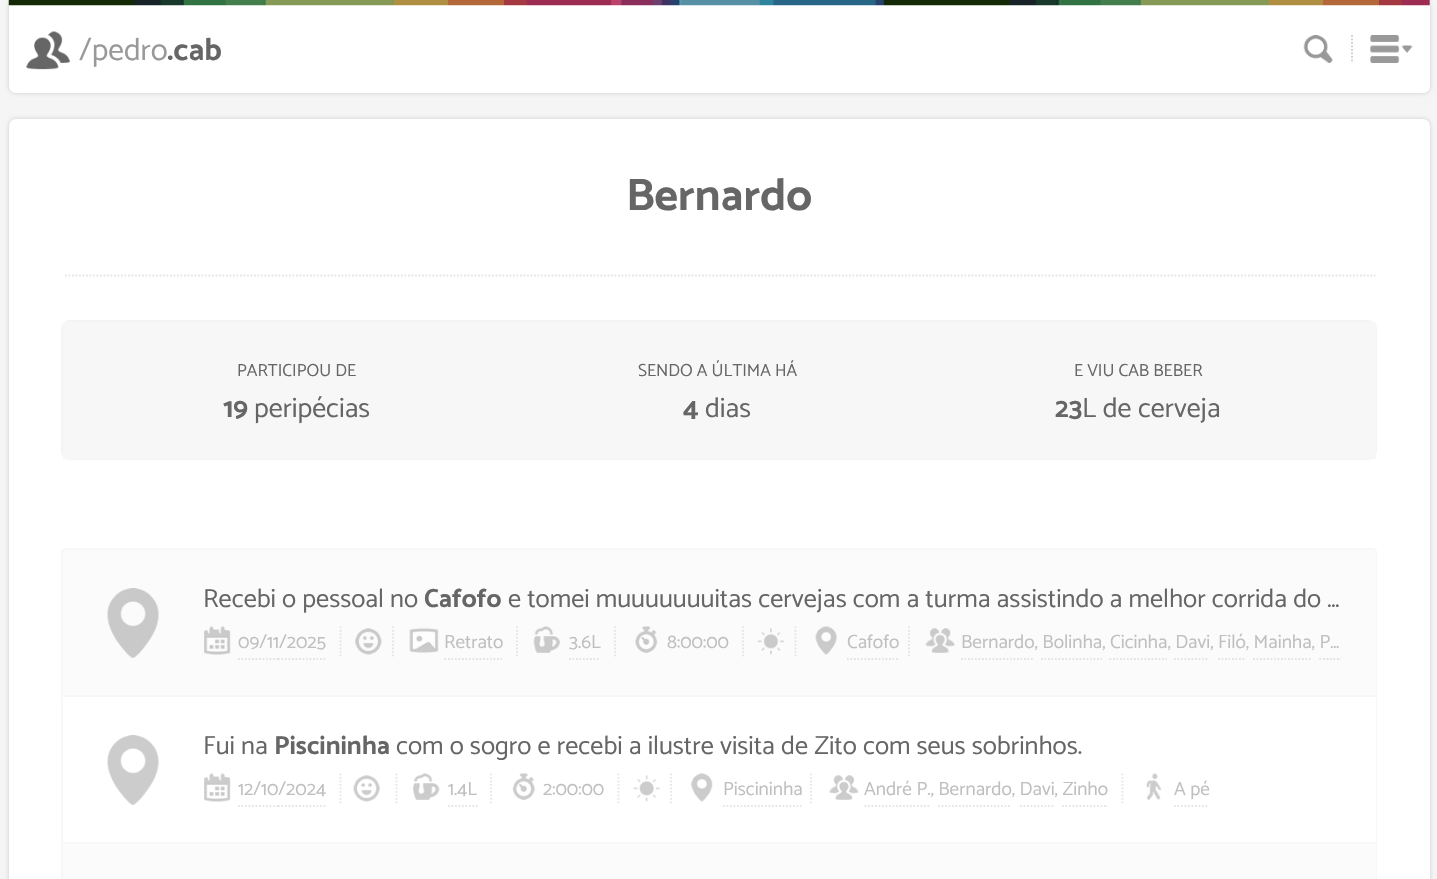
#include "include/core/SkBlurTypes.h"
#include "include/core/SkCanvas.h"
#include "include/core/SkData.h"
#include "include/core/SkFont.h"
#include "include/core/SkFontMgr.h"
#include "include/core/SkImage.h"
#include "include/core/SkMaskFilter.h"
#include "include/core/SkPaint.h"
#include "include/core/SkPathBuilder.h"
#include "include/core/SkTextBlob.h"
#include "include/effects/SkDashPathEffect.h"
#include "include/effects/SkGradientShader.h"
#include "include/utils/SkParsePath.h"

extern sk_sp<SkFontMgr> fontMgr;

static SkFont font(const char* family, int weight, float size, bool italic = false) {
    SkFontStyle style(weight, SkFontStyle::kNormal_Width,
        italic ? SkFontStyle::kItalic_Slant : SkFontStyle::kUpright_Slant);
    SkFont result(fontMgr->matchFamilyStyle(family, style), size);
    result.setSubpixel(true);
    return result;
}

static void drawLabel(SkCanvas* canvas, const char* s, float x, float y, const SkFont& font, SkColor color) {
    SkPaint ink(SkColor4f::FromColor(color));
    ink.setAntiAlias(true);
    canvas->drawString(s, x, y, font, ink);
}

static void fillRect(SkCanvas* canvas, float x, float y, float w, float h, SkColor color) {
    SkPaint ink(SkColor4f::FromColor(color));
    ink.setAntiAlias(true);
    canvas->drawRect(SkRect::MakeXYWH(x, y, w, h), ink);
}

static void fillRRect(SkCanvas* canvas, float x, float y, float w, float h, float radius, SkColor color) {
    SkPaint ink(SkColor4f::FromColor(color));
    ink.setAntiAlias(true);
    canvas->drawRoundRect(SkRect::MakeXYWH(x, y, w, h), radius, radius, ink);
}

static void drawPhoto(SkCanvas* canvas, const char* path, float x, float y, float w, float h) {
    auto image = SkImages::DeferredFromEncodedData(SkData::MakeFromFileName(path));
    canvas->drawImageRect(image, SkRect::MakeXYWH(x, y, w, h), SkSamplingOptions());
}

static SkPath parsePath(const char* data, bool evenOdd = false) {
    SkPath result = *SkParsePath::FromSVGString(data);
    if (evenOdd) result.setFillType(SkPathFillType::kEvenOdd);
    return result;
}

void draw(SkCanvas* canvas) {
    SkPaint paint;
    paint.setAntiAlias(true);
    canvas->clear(0xFFF5F5F5);
    paint.setColor(0xFFCCCCCC);
    paint.setMaskFilter(SkMaskFilter::MakeBlur(kNormal_SkBlurStyle, 2));
    canvas->drawRoundRect(SkRect::MakeXYWH(9, 0, 1421, 93), 7, 7, paint);
    paint.setMaskFilter(nullptr);
    paint.setColor(0xFFFFFFFF);
    canvas->drawPath(parsePath("M9 0H1430V86C1430 90 1427 93 1423 93H16C12 93 9 90 9 86Z"), paint);
    drawPhoto(canvas, "assets/img1.png", 8, 0, 1422, 6);
    SkFont font1 = font("Catamaran", 400, 31.5f);
    drawLabel(canvas, "/pedro", 79, 60, font1, 0xFF999999);
    SkFont font2 = font("Catamaran", 700, 31.5f);
    drawLabel(canvas, ".cab", 167, 60, font2, 0xFF666666);
    drawPhoto(canvas, "assets/img2.png", 1303, 35, 30, 28);
    drawPhoto(canvas, "assets/img3.png", 1370, 35, 43, 28);
    paint.setStroke(true);
    paint.setStrokeWidth(1.8f);
    paint.setColor(0xFFCCCCCC);
    paint.setPathEffect(SkDashPathEffect::Make({{1.75f, 1.75f}}, 0));
    canvas->drawPath(parsePath("M1352 35V63"), paint);
    paint.setPathEffect(nullptr);
    paint.setStroke(false);
    paint.setMaskFilter(SkMaskFilter::MakeBlur(kNormal_SkBlurStyle, 2));
    canvas->drawRoundRect(SkRect::MakeXYWH(9, 119, 1421, 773), 7, 7, paint);
    paint.setMaskFilter(nullptr);
    fillRRect(canvas, 9, 119, 1421, 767, 7, 0xFFFFFFFF);
    drawPhoto(canvas, "assets/img4.png", 26, 31, 44, 39);
    SkFont font3 = font("Catamaran", 700, 45.5f);
    drawLabel(canvas, "Bernardo", 626, 210, font3, 0xFF666666);
    paint.setStroke(true);
    paint.setColor(0xFFE5E5E5);
    paint.setPathEffect(SkDashPathEffect::Make({{1.75f, 1.75f}}, 0));
    canvas->drawPath(parsePath("M65 275.5H1375.5"), paint);
    paint.setPathEffect(nullptr);
    paint.setStrokeWidth(2);
    paint.setColor(0xFFF4F4F4);
    canvas->drawRoundRect(SkRect::MakeXYWH(62, 321, 1314, 138), 8, 8, paint);
    fillRect(canvas, 63, 322, 1313, 137, 0xFFF7F7F7);
    SkFont font4 = font("Catamaran", 400, 17.5f);
    drawLabel(canvas, "PARTICIPOU DE", 237, 376, font4, 0xFF666666);
    SkFont font5 = font("Catamaran", 700, 28);
    drawLabel(canvas, "19", 223, 417, font5, 0xFF666666);
    SkFont font6 = font("Catamaran", 400, 28);
    drawLabel(canvas, "peripécias", 254, 417, font6, 0xFF666666);
    drawLabel(canvas, "SENDO A ÚLTIMA HÁ", 638, 376, font4, 0xFF666666);
    drawLabel(canvas, "4", 683, 417, font5, 0xFF666666);
    drawLabel(canvas, "dias", 705, 417, font6, 0xFF666666);
    drawLabel(canvas, "E VIU CAB BEBER", 1074, 376, font4, 0xFF666666);
    drawLabel(canvas, "23", 1055, 417, font5, 0xFF666666);
    drawLabel(canvas, "L de cerveja", 1082, 417, font6, 0xFF666666);
    fillRRect(canvas, 61, 548, 1316, 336, 5, 0xFFFBFBFB);
    paint.setStroke(false);
    paint.setColor(0xFFF7F7F7);
    canvas->drawPath(parsePath("M66 548H1372C1375 548 1377 550 1377 553V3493C1377 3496 1375 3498 1372 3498H66C64 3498 61 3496 61 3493V553C61 550 64 548 66 548ZM66 550H1372C1374 550 1376 551 1376 553V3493C1376 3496 1374 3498 1372 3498H66C65 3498 63 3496 63 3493V553C63 551 65 550 66 550Z", true), paint);
    fillRect(canvas, 63, 550, 1313, 1, 0xFFFBFBFB);
    fillRect(canvas, 63, 695, 1313, 2, 0xFFF7F7F7);
    drawPhoto(canvas, "assets/img5.png", 107, 588, 52, 70);
    SkFont font7 = font("Catamaran", 400, 26.25f);
    drawLabel(canvas, "Recebi o pessoal no", 203, 607, font7, 0xFF666666);
    SkFont font8 = font("Catamaran", 700, 26.25f);
    drawLabel(canvas, "Cafofo", 424, 607, font8, 0xFF666666);
    drawLabel(canvas, "e tomei muuuuuuuitas cervejas com a turma assistindo a melhor corrida do …", 508, 607, font7, 0xFF666666);
    drawPhoto(canvas, "assets/img6.png", 204, 626, 27, 29);
    paint.setStroke(true);
    paint.setStrokeWidth(1.8f);
    paint.setColor(0xFFE4E4E4);
    paint.setPathEffect(SkDashPathEffect::Make({{1.75f, 1.75f}}, 0));
    canvas->drawPath(parsePath("M340.5 626.5V658M393 626.5V658"), paint);
    paint.setPathEffect(nullptr);
    paint.setPathEffect(SkDashPathEffect::Make({{1.75f, 1.75f}}, 0));
    canvas->drawPath(parsePath("M517 626.5V658"), paint);
    paint.setPathEffect(nullptr);
    drawPhoto(canvas, "assets/img7.png", 533, 626, 27, 27);
    paint.setPathEffect(SkDashPathEffect::Make({{1.75f, 1.75f}}, 0));
    canvas->drawPath(parsePath("M615 626.5V658"), paint);
    paint.setPathEffect(nullptr);
    drawPhoto(canvas, "assets/img8.png", 635, 626, 23, 27);
    paint.setPathEffect(SkDashPathEffect::Make({{1.75f, 1.75f}}, 0));
    canvas->drawPath(parsePath("M743 626.5V658M795.5 626.5V658"), paint);
    paint.setPathEffect(nullptr);
    drawPhoto(canvas, "assets/img9.png", 815, 626, 22, 29);
    paint.setPathEffect(SkDashPathEffect::Make({{1.75f, 1.75f}}, 0));
    canvas->drawPath(parsePath("M909 626.5V658"), paint);
    paint.setPathEffect(nullptr);
    SkFont font9 = font("Catamaran", 400, 19.25f);
    drawLabel(canvas, "09/11/2025", 238, 648, font9, 0xFFBFBFBF);
    paint.setPathEffect(SkDashPathEffect::Make({{1.75f, 1.75f}}, 0));
    canvas->drawPath(parsePath("M238 659H278"), paint);
    paint.setPathEffect(nullptr);
    drawPhoto(canvas, "assets/img10.png", 355, 628, 27, 27);
    drawPhoto(canvas, "assets/img11.png", 409, 628, 30, 25);
    drawLabel(canvas, "Retrato", 444, 648, font9, 0xFFBFBFBF);
    paint.setPathEffect(SkDashPathEffect::Make({{1.75f, 1.75f}}, 0));
    canvas->drawPath(parsePath("M444.5 659H504"), paint);
    paint.setPathEffect(nullptr);
    drawLabel(canvas, "3.6L", 569, 648, font9, 0xFFBFBFBF);
    paint.setPathEffect(SkDashPathEffect::Make({{1.75f, 1.75f}}, 0));
    canvas->drawPath(parsePath("M569 659H600"), paint);
    paint.setPathEffect(nullptr);
    drawLabel(canvas, "8:00:00", 667, 648, font9, 0xFFBFBFBF);
    drawPhoto(canvas, "assets/img12.png", 757, 628, 27, 27);
    drawLabel(canvas, "Cafofo", 847, 648, font9, 0xFFBFBFBF);
    paint.setPathEffect(SkDashPathEffect::Make({{1.75f, 1.75f}}, 0));
    canvas->drawPath(parsePath("M847 659H899.5"), paint);
    paint.setPathEffect(nullptr);
    drawPhoto(canvas, "assets/img13.png", 925, 628, 30, 25);
    drawLabel(canvas, "Bernardo, Bolinha, Cicinha, Davi, Filó, Mainha, P…", 961, 648, font9, 0xFFBFBFBF);
    paint.setPathEffect(SkDashPathEffect::Make({{1.75f, 1.75f}}, 0));
    canvas->drawPath(parsePath("M961 659H1034"), paint);
    paint.setPathEffect(nullptr);
    paint.setPathEffect(SkDashPathEffect::Make({{1.75f, 1.75f}}, 0));
    canvas->drawPath(parsePath("M278 659H325.5"), paint);
    paint.setPathEffect(nullptr);
    paint.setPathEffect(SkDashPathEffect::Make({{1.75f, 1.75f}}, 0));
    canvas->drawPath(parsePath("M1041 659H1102.5"), paint);
    paint.setPathEffect(nullptr);
    paint.setPathEffect(SkDashPathEffect::Make({{1.75f, 1.75f}}, 0));
    canvas->drawPath(parsePath("M1109.5 659H1167"), paint);
    paint.setPathEffect(nullptr);
    paint.setPathEffect(SkDashPathEffect::Make({{1.75f, 1.75f}}, 0));
    canvas->drawPath(parsePath("M1174 659H1209"), paint);
    paint.setPathEffect(nullptr);
    paint.setPathEffect(SkDashPathEffect::Make({{1.75f, 1.75f}}, 0));
    canvas->drawPath(parsePath("M1218 659H1246"), paint);
    paint.setPathEffect(nullptr);
    paint.setPathEffect(SkDashPathEffect::Make({{1.75f, 1.75f}}, 0));
    canvas->drawPath(parsePath("M1253 659H1311"), paint);
    paint.setPathEffect(nullptr);
    canvas->save();
    canvas->clipRect(SkRect::MakeXYWH(203, 613, 1138, 47));
    paint.setPathEffect(SkDashPathEffect::Make({{1.75f, 1.75f}}, 0));
    canvas->drawPath(parsePath("M1319.5 659H1363"), paint);
    paint.setPathEffect(nullptr);
    canvas->restore();
    canvas->drawPath(parsePath("M1319.5 659H1321M1323 659H1325M1326.5 659H1328.5M1330 659H1331.5M1333.5 659H1335M1337 659H1339"), paint);
    fillRect(canvas, 63, 697, 1313, 145, 0xFFFFFFFF);
    fillRect(canvas, 63, 842, 1313, 2, 0xFFF7F7F7);
    drawPhoto(canvas, "assets/img14.png", 107, 735, 52, 70);
    drawLabel(canvas, "Fui na", 203, 754, font7, 0xFF666666);
    drawLabel(canvas, "Piscininha", 274, 754, font8, 0xFF666666);
    drawLabel(canvas, "com o sogro e recebi a ilustre visita de Zito com seus sobrinhos.", 396, 754, font7, 0xFF666666);
    drawPhoto(canvas, "assets/img15.png", 204, 773, 27, 29);
    paint.setColor(0xFFE6E6E6);
    paint.setPathEffect(SkDashPathEffect::Make({{1.75f, 1.75f}}, 0));
    canvas->drawPath(parsePath("M340.5 773.5V805M396.5 773.5V805"), paint);
    paint.setPathEffect(nullptr);
    drawPhoto(canvas, "assets/img16.png", 413, 773, 27, 27);
    paint.setPathEffect(SkDashPathEffect::Make({{1.75f, 1.75f}}, 0));
    canvas->drawPath(parsePath("M491 773.5V805"), paint);
    paint.setPathEffect(nullptr);
    drawPhoto(canvas, "assets/img17.png", 512, 773, 23, 27);
    paint.setPathEffect(SkDashPathEffect::Make({{1.75f, 1.75f}}, 0));
    canvas->drawPath(parsePath("M618.5 773.5V805M671 773.5V805"), paint);
    paint.setPathEffect(nullptr);
    drawPhoto(canvas, "assets/img18.png", 691, 773, 22, 29);
    paint.setPathEffect(SkDashPathEffect::Make({{1.75f, 1.75f}}, 0));
    canvas->drawPath(parsePath("M811 773.5V805"), paint);
    paint.setPathEffect(nullptr);
    drawLabel(canvas, "André P., Bernardo, Davi, Zinho", 864, 795, font9, 0xFFBFBFBF);
    paint.setPathEffect(SkDashPathEffect::Make({{1.75f, 1.75f}}, 0));
    canvas->drawPath(parsePath("M1062 806H1108M1122.5 773.5V805"), paint);
    paint.setPathEffect(nullptr);
    drawPhoto(canvas, "assets/img19.png", 1146, 773, 16, 27);
    drawLabel(canvas, "12/10/2024", 238, 795, font9, 0xFFBFBFBF);
    paint.setPathEffect(SkDashPathEffect::Make({{1.75f, 1.75f}}, 0));
    canvas->drawPath(parsePath("M238 806H278"), paint);
    paint.setPathEffect(nullptr);
    drawPhoto(canvas, "assets/img20.png", 353, 775, 27, 27);
    drawLabel(canvas, "1.4L", 448, 795, font9, 0xFFBFBFBF);
    paint.setPathEffect(SkDashPathEffect::Make({{1.75f, 1.75f}}, 0));
    canvas->drawPath(parsePath("M448 806H478"), paint);
    paint.setPathEffect(nullptr);
    drawLabel(canvas, "2:00:00", 543, 795, font9, 0xFFBFBFBF);
    drawPhoto(canvas, "assets/img21.png", 633, 775, 27, 27);
    drawLabel(canvas, "Piscininha", 723, 795, font9, 0xFFBFBFBF);
    paint.setPathEffect(SkDashPathEffect::Make({{1.75f, 1.75f}}, 0));
    canvas->drawPath(parsePath("M723 806H801.5"), paint);
    paint.setPathEffect(nullptr);
    drawPhoto(canvas, "assets/img22.png", 829, 775, 30, 25);
    paint.setPathEffect(SkDashPathEffect::Make({{1.75f, 1.75f}}, 0));
    canvas->drawPath(parsePath("M864.5 806H931"), paint);
    paint.setPathEffect(nullptr);
    drawLabel(canvas, "A pé", 1174, 795, font9, 0xFFBFBFBF);
    paint.setPathEffect(SkDashPathEffect::Make({{1.75f, 1.75f}}, 0));
    canvas->drawPath(parsePath("M1174 806H1209"), paint);
    paint.setPathEffect(nullptr);
    paint.setPathEffect(SkDashPathEffect::Make({{1.75f, 1.75f}}, 0));
    canvas->drawPath(parsePath("M278 806H325.5"), paint);
    paint.setPathEffect(nullptr);
    paint.setPathEffect(SkDashPathEffect::Make({{1.75f, 1.75f}}, 0));
    canvas->drawPath(parsePath("M938 806H1011.5"), paint);
    paint.setPathEffect(nullptr);
    paint.setPathEffect(SkDashPathEffect::Make({{1.75f, 1.75f}}, 0));
    canvas->drawPath(parsePath("M1020 806H1055"), paint);
    paint.setPathEffect(nullptr);
}
